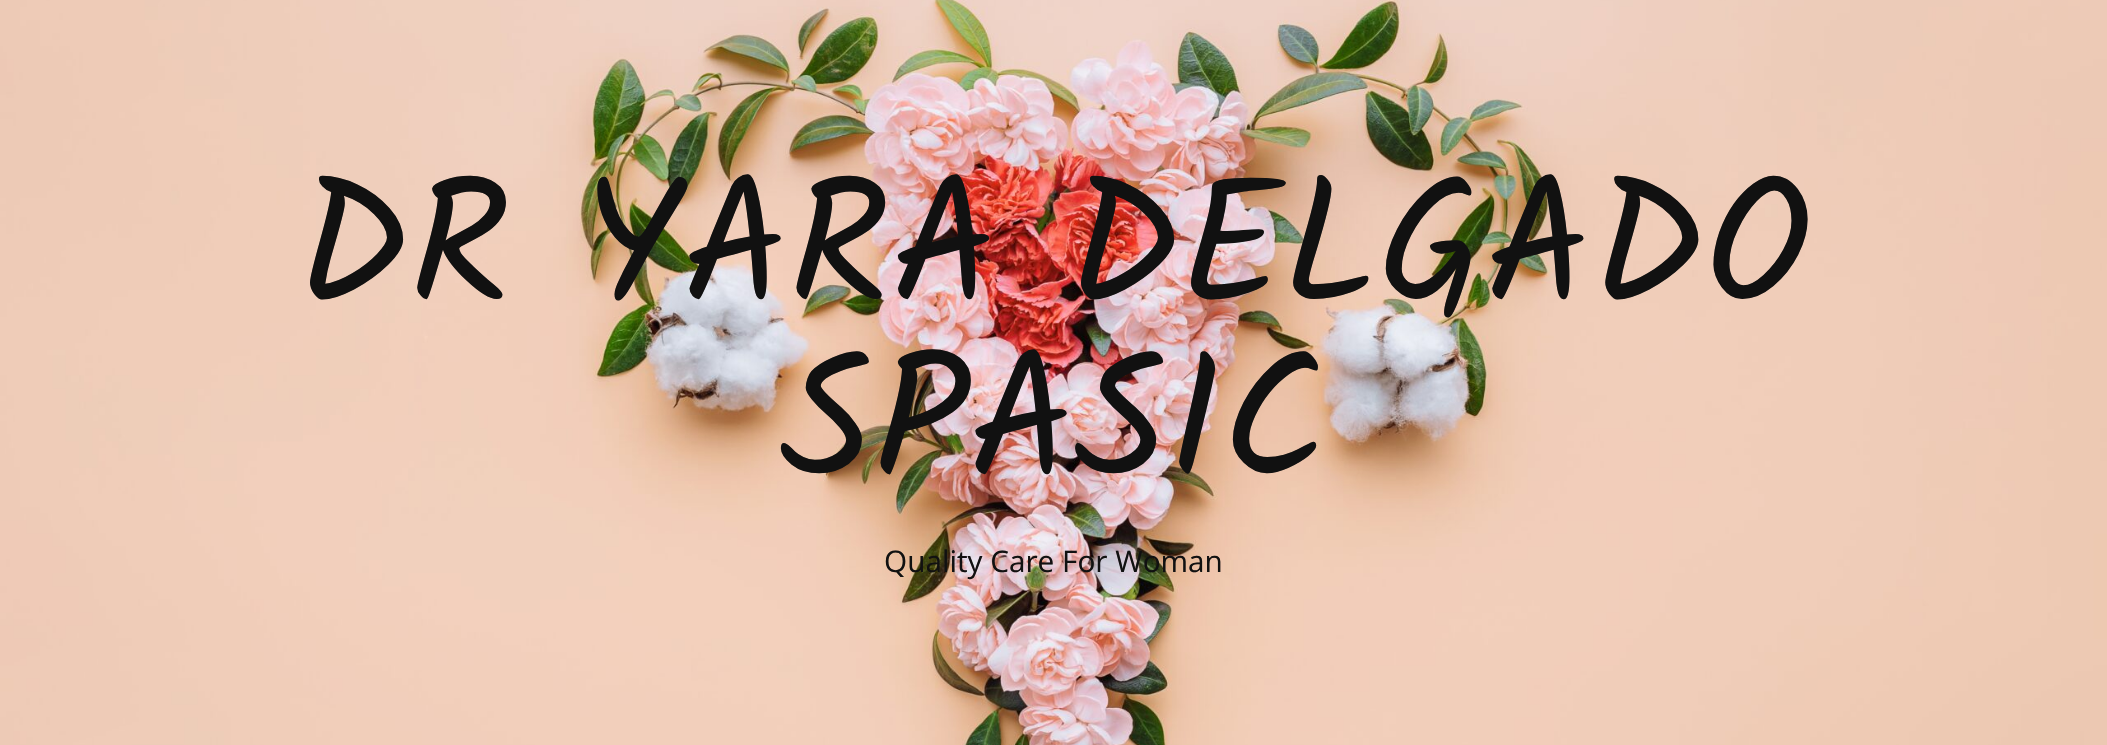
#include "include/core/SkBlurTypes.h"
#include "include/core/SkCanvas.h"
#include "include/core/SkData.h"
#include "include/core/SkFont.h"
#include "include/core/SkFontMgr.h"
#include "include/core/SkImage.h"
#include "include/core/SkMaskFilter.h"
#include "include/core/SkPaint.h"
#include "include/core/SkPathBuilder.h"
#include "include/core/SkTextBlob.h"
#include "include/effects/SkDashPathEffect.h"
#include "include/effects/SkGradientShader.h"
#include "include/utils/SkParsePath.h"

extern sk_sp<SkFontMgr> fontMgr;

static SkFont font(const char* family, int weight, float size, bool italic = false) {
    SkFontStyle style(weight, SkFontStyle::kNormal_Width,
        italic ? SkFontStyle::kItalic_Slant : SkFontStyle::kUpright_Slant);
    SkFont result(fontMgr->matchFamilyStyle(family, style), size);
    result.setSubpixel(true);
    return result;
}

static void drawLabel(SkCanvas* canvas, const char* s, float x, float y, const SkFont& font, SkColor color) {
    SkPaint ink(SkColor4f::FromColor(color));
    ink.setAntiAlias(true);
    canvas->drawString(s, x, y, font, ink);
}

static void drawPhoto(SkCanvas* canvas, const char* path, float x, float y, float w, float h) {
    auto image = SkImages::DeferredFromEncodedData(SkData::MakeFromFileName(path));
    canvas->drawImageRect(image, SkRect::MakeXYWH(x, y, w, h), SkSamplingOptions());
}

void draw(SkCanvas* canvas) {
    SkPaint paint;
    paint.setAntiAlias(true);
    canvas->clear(0xFFFFFFFF);
    drawPhoto(canvas, "assets/img1.png", 0, 0, 2107, 745);
    SkFont font1 = font("Kalam", 400, 175);
    drawLabel(canvas, "DR YARA DELGADO", 296, 302, font1, 0xFF111111);
    drawLabel(canvas, "SPASIC", 780, 477, font1, 0xFF111111);
    SkFont font2 = font("Open Sans", 400, 29.75f);
    drawLabel(canvas, "Quality Care For Woman", 884, 572, font2, 0xFF111111);
}
